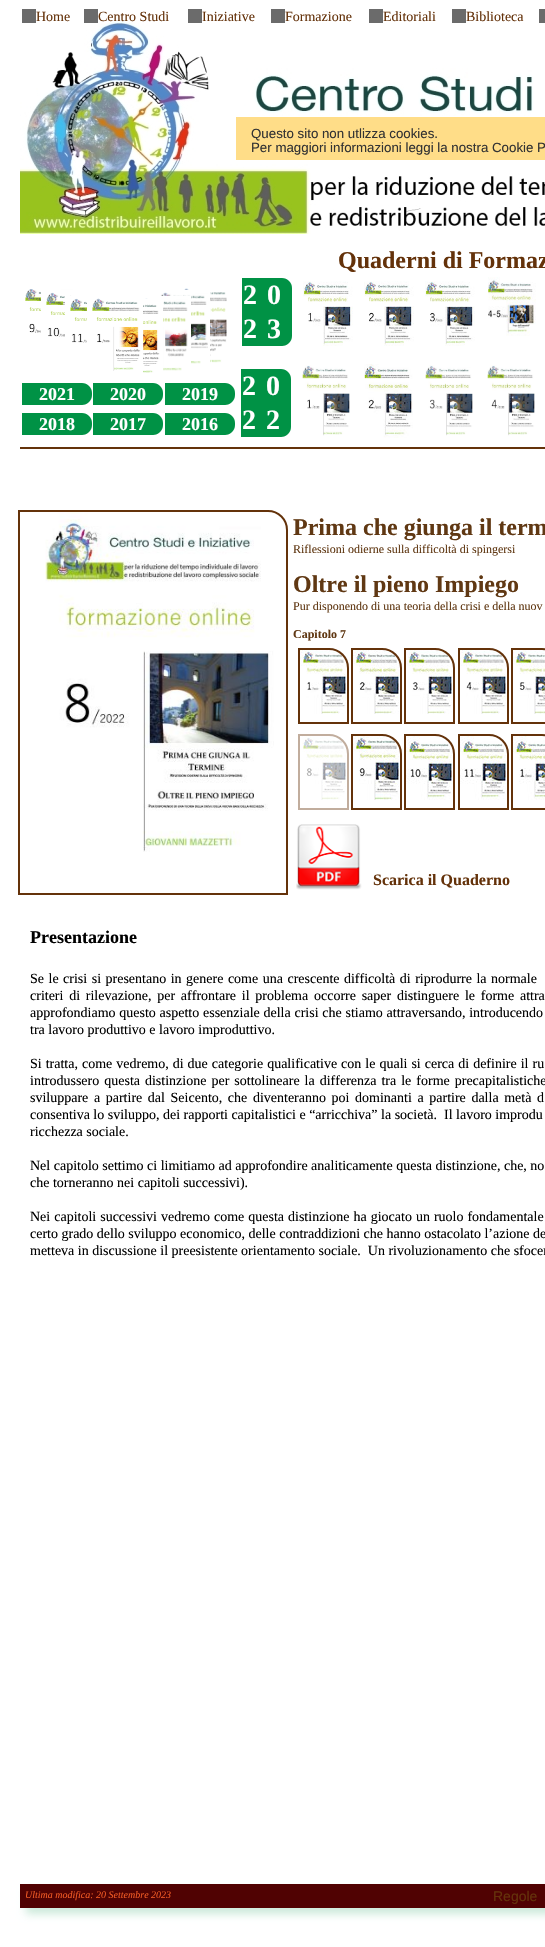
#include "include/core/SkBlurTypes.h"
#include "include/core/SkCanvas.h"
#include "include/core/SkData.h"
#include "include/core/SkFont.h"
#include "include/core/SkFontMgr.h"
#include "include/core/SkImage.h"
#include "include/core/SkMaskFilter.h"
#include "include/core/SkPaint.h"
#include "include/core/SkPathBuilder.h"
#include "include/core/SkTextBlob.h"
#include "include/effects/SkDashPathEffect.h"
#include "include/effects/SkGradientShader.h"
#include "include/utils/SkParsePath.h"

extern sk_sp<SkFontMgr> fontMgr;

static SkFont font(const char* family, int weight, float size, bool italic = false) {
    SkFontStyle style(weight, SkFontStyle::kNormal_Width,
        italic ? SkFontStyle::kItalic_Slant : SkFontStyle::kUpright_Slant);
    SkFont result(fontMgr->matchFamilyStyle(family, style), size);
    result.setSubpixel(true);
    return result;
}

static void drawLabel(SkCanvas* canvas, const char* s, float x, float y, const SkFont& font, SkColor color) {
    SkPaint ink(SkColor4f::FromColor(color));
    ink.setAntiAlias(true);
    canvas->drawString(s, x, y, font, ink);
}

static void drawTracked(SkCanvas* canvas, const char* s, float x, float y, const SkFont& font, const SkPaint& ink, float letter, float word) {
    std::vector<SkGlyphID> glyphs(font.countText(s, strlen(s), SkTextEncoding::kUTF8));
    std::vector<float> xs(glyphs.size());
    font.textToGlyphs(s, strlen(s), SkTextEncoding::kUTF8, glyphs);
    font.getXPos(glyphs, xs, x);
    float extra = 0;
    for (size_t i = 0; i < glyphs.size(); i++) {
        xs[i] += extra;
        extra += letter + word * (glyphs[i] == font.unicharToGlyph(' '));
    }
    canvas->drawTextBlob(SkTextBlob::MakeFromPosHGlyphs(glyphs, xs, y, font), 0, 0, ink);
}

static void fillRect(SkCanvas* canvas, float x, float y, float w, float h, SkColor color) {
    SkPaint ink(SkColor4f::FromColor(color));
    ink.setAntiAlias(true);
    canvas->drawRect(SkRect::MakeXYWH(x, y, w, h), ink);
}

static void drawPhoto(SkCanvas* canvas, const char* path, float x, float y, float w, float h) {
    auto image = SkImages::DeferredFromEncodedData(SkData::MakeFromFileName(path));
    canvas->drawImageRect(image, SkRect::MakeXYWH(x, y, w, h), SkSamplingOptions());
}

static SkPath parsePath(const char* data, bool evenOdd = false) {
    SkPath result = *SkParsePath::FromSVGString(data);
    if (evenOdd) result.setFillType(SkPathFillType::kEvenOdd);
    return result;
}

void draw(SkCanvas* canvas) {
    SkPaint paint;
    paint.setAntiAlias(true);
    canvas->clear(0xFFFFFFFF);
    drawPhoto(canvas, "assets/img1.png", 20, 21, 525, 213);
    fillRect(canvas, 22, 9, 14, 14, 0xFF6B6B6B);
    SkFont font1 = font("Liberation Serif", 400, 14);
    drawLabel(canvas, "Home", 36, 21, font1, 0xFF64320A);
    fillRect(canvas, 84, 9, 14, 14, 0xFF6B6B6B);
    drawLabel(canvas, "Centro Studi", 98, 21, font1, 0xFF64320A);
    fillRect(canvas, 188, 9, 14, 14, 0xFF6B6B6B);
    drawLabel(canvas, "Iniziative", 202, 21, font1, 0xFF64320A);
    fillRect(canvas, 271, 9, 14, 14, 0xFF6B6B6B);
    drawLabel(canvas, "Formazione", 285, 21, font1, 0xFF64320A);
    fillRect(canvas, 369, 9, 14, 14, 0xFF6B6B6B);
    drawLabel(canvas, "Editoriali", 383, 21, font1, 0xFF64320A);
    fillRect(canvas, 452, 9, 14, 14, 0xFF6B6B6B);
    drawLabel(canvas, "Biblioteca", 466, 21, font1, 0xFF64320A);
    fillRect(canvas, 539, 9, 6, 14, 0xFF6B6B6B);
    fillRect(canvas, 236, 117, 309, 43, 0xFFFFDD88);
    SkFont font2 = font("Liberation Sans", 400, 13.3f);
    drawLabel(canvas, "Questo sito non utlizza cookies.", 251, 138, font2, 0xFF333333);
    drawLabel(canvas, "Per maggiori informazioni leggi la nostra Cookie P", 251, 152, font2, 0xFF333333);
    SkFont font3 = font("Liberation Serif", 700, 24);
    drawLabel(canvas, "Quaderni di Formaz", 338, 268, font3, 0xFF64320A);
    drawPhoto(canvas, "assets/img2.png", 25, 289, 48, 73);
    fillRect(canvas, 41, 291, 32, 71, 0xFFFFFFFF);
    drawPhoto(canvas, "assets/img3.png", 46, 292, 49, 73);
    fillRect(canvas, 65, 296, 22, 69, 0xFFFFFFFF);
    drawPhoto(canvas, "assets/img4.png", 70, 298, 17, 73);
    fillRect(canvas, 87, 296, 8, 68, 0xFFFFFFFF);
    drawPhoto(canvas, "assets/img5.png", 92, 298, 49, 73);
    drawPhoto(canvas, "assets/img6.png", 180, 288, 47, 75);
    fillRect(canvas, 180, 290, 30, 73, 0xFFFFFFFF);
    drawPhoto(canvas, "assets/img7.png", 158, 292, 50, 72);
    fillRect(canvas, 158, 296, 33, 68, 0xFFFFFFFF);
    drawPhoto(canvas, "assets/img8.png", 143, 298, 45, 73);
    fillRect(canvas, 143, 299, 20, 72, 0xFFFFFFFF);
    drawPhoto(canvas, "assets/img9.png", 143, 301, 17, 73);
    paint.setColor(0xFF009245);
    canvas->drawPath(parsePath("M242 278H282C287.5 278 292 282.5 292 288V336C292 341.5 287.5 346 282 346H242Z"), paint);
    SkFont font4 = font("Liberation Serif", 700, 28);
    paint.setColor(0xFFFFFFFF);
    drawTracked(canvas, "20", 243, 304, font4, paint, 10, 0);
    drawTracked(canvas, "23", 243, 338, font4, paint, 10, 0);
    drawPhoto(canvas, "assets/img10.png", 303, 281, 50, 65);
    drawPhoto(canvas, "assets/img11.png", 364, 281, 50, 65);
    drawPhoto(canvas, "assets/img12.png", 425, 281, 50, 65);
    drawPhoto(canvas, "assets/img13.png", 488, 277, 48, 59);
    paint.setColor(0xFF009245);
    canvas->drawPath(parsePath("M22 383H82C87.5 383 92 387.5 92 393V395C92 400.5 87.5 405 82 405H22Z"), paint);
    SkFont font5 = font("Liberation Serif", 700, 18);
    drawLabel(canvas, "2021", 39, 400, font5, 0xFFFFFFFF);
    canvas->drawPath(parsePath("M22 413H82C87.5 413 92 417.5 92 423V425C92 430.5 87.5 435 82 435H22Z"), paint);
    drawLabel(canvas, "2018", 39, 430, font5, 0xFFFFFFFF);
    canvas->drawPath(parsePath("M93 383H153C158.5 383 163 387.5 163 393V395C163 400.5 158.5 405 153 405H93Z"), paint);
    drawLabel(canvas, "2020", 110, 400, font5, 0xFFFFFFFF);
    canvas->drawPath(parsePath("M93 413H153C158.5 413 163 417.5 163 423V425C163 430.5 158.5 435 153 435H93Z"), paint);
    drawLabel(canvas, "2017", 110, 430, font5, 0xFFFFFFFF);
    canvas->drawPath(parsePath("M165 383H225C230.5 383 235 387.5 235 393V395C235 400.5 230.5 405 225 405H165Z"), paint);
    drawLabel(canvas, "2019", 182, 400, font5, 0xFFFFFFFF);
    canvas->drawPath(parsePath("M165 413H225C230.5 413 235 417.5 235 423V425C235 430.5 230.5 435 225 435H165Z"), paint);
    drawLabel(canvas, "2016", 182, 430, font5, 0xFFFFFFFF);
    canvas->drawPath(parsePath("M241 369H281C286.5 369 291 373.5 291 379V427C291 432.5 286.5 437 281 437H241Z"), paint);
    paint.setColor(0xFFFFFFFF);
    drawTracked(canvas, "20", 242, 395, font4, paint, 10, 0);
    drawTracked(canvas, "22", 242, 429, font4, paint, 10, 0);
    drawPhoto(canvas, "assets/img14.png", 302, 365, 48, 71);
    drawPhoto(canvas, "assets/img15.png", 364, 364, 49, 74);
    drawPhoto(canvas, "assets/img16.png", 425, 365, 48, 71);
    drawPhoto(canvas, "assets/img17.png", 487, 365, 48, 71);
    fillRect(canvas, 20, 447, 525, 2, 0xFF64320A);
    drawPhoto(canvas, "assets/img18.png", 45, 512, 229, 340);
    paint.setStroke(true);
    paint.setStrokeWidth(2);
    paint.setColor(0xFF64320A);
    canvas->drawPath(parsePath("M19 511H268C278.5 511 287 519.5 287 530V894H19Z"), paint);
    drawLabel(canvas, "Prima che giunga il term", 293, 535, font3, 0xFF603813);
    SkFont font6 = font("Liberation Serif", 400, 12);
    drawLabel(canvas, "Riflessioni odierne sulla difficoltà di spingersi", 293, 553, font6, 0xFF603813);
    drawLabel(canvas, "Oltre il pieno Impiego", 293, 592, font3, 0xFF603813);
    drawLabel(canvas, "Pur disponendo di una teoria della crisi e della nuov", 293, 610, font6, 0xFF603813);
    SkFont font7 = font("Liberation Serif", 700, 12);
    drawLabel(canvas, "Capitolo 7", 293, 638, font7, 0xFF603813);
    drawPhoto(canvas, "assets/img19.png", 300, 650, 46, 64);
    canvas->drawPath(parsePath("M299 649H329C339.5 649 348 657.5 348 668V723H299Z"), paint);
    drawPhoto(canvas, "assets/img20.png", 353, 650, 46, 64);
    canvas->drawPath(parsePath("M352 649H382C392.5 649 401 657.5 401 668V723H352Z"), paint);
    drawPhoto(canvas, "assets/img21.png", 406, 650, 46, 64);
    canvas->drawPath(parsePath("M405 649H435C445.5 649 454 657.5 454 668V723H405Z"), paint);
    drawPhoto(canvas, "assets/img22.png", 460, 650, 46, 64);
    canvas->drawPath(parsePath("M459 649H489C499.5 649 508 657.5 508 668V723H459Z"), paint);
    drawPhoto(canvas, "assets/img23.png", 513, 650, 32, 64);
    canvas->drawPath(parsePath("M512 649H542C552.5 649 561 657.5 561 668V723H512Z"), paint);
    drawPhoto(canvas, "assets/img24.png", 302, 736, 44, 64);
    paint.setColor(0xFFC1AD9D);
    canvas->drawPath(parsePath("M299 735H329C339.5 735 348 743.5 348 754V809H299Z"), paint);
    drawPhoto(canvas, "assets/img25.png", 353, 736, 46, 64);
    paint.setColor(0xFF64320A);
    canvas->drawPath(parsePath("M352 735H382C392.5 735 401 743.5 401 754V809H352Z"), paint);
    drawPhoto(canvas, "assets/img26.png", 406, 736, 46, 64);
    canvas->drawPath(parsePath("M405 735H435C445.5 735 454 743.5 454 754V809H405Z"), paint);
    drawPhoto(canvas, "assets/img27.png", 460, 736, 46, 64);
    canvas->drawPath(parsePath("M459 735H489C499.5 735 508 743.5 508 754V809H459Z"), paint);
    drawPhoto(canvas, "assets/img28.png", 513, 736, 32, 64);
    canvas->drawPath(parsePath("M512 735H542C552.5 735 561 743.5 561 754V809H512Z"), paint);
    drawPhoto(canvas, "assets/img29.png", 296, 824, 66, 66);
    SkFont font8 = font("Liberation Serif", 700, 16);
    drawLabel(canvas, "Scarica il Quaderno", 373, 885, font8, 0xFF64320A);
    drawLabel(canvas, "Presentazione", 30, 943, font5, 0xFF000000);
    paint.setStroke(false);
    paint.setColor(0xFF000000);
    drawTracked(canvas, "Se le crisi si presentano in genere come una crescente difficoltà di riprodurre la normale", 30, 983, font1, paint, 0, 1);
    drawTracked(canvas, "criteri di rilevazione, per affrontare il problema occorre saper distinguere le forme attra", 30, 1000, font1, paint, 0, 2.25f);
    drawTracked(canvas, "approfondiamo questo aspetto essenziale della crisi che stiamo attraversando, introducendo", 30, 1017, font1, paint, 0, 0.25f);
    drawLabel(canvas, "tra lavoro produttivo e lavoro improduttivo.", 30, 1034, font1, 0xFF000000);
    drawTracked(canvas, "Si tratta, come vedremo, di due categorie qualificative con le quali si cerca di definire il ru", 30, 1068, font1, paint, 0, 0.5f);
    drawTracked(canvas, "introdussero questa distinzione per sottolineare la differenza tra le forme precapitalistiche", 30, 1085, font1, paint, 0, 1.5f);
    drawTracked(canvas, "sviluppare a partire dal Seicento, che diventeranno poi dominanti a partire dalla metà d", 30, 1102, font1, paint, 0, 2.1f);
    drawLabel(canvas, "consentiva lo sviluppo, dei rapporti capitalistici e “arricchiva” la società.  Il lavoro improdu", 30, 1119, font1, 0xFF000000);
    drawLabel(canvas, "ricchezza sociale.", 30, 1136, font1, 0xFF000000);
    drawLabel(canvas, "Nel capitolo settimo ci limitiamo ad approfondire analiticamente questa distinzione, che, no", 30, 1170, font1, 0xFF000000);
    drawLabel(canvas, "che torneranno nei capitoli successivi).", 30, 1187, font1, 0xFF000000);
    drawTracked(canvas, "Nei capitoli successivi vedremo come questa distinzione ha giocato un ruolo fondamentale", 30, 1221, font1, paint, 0, 0.5f);
    drawLabel(canvas, "certo grado dello sviluppo economico, delle contraddizioni che hanno ostacolato l’azione de", 30, 1238, font1, 0xFF000000);
    drawLabel(canvas, "metteva in discussione il preesistente orientamento sociale.  Un rivoluzionamento che sfocer", 30, 1255, font1, 0xFF000000);
    paint.setColor(0x33009245);
    paint.setMaskFilter(SkMaskFilter::MakeBlur(kNormal_SkBlurStyle, 4));
    canvas->drawRect(SkRect::MakeXYWH(26, 1890, 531, 24), paint);
    paint.setMaskFilter(nullptr);
    fillRect(canvas, 20, 1884, 525, 24, 0xFF500202);
    SkFont font9 = font("Liberation Serif", 400, 10, true);
    drawLabel(canvas, "Ultima modifica: 20 Settembre 2023", 25, 1898, font9, 0xFFF15A24);
    SkFont font10 = font("Liberation Sans", 400, 14);
    drawLabel(canvas, "Regole", 493, 1901, font10, 0xFF64320A);
}
